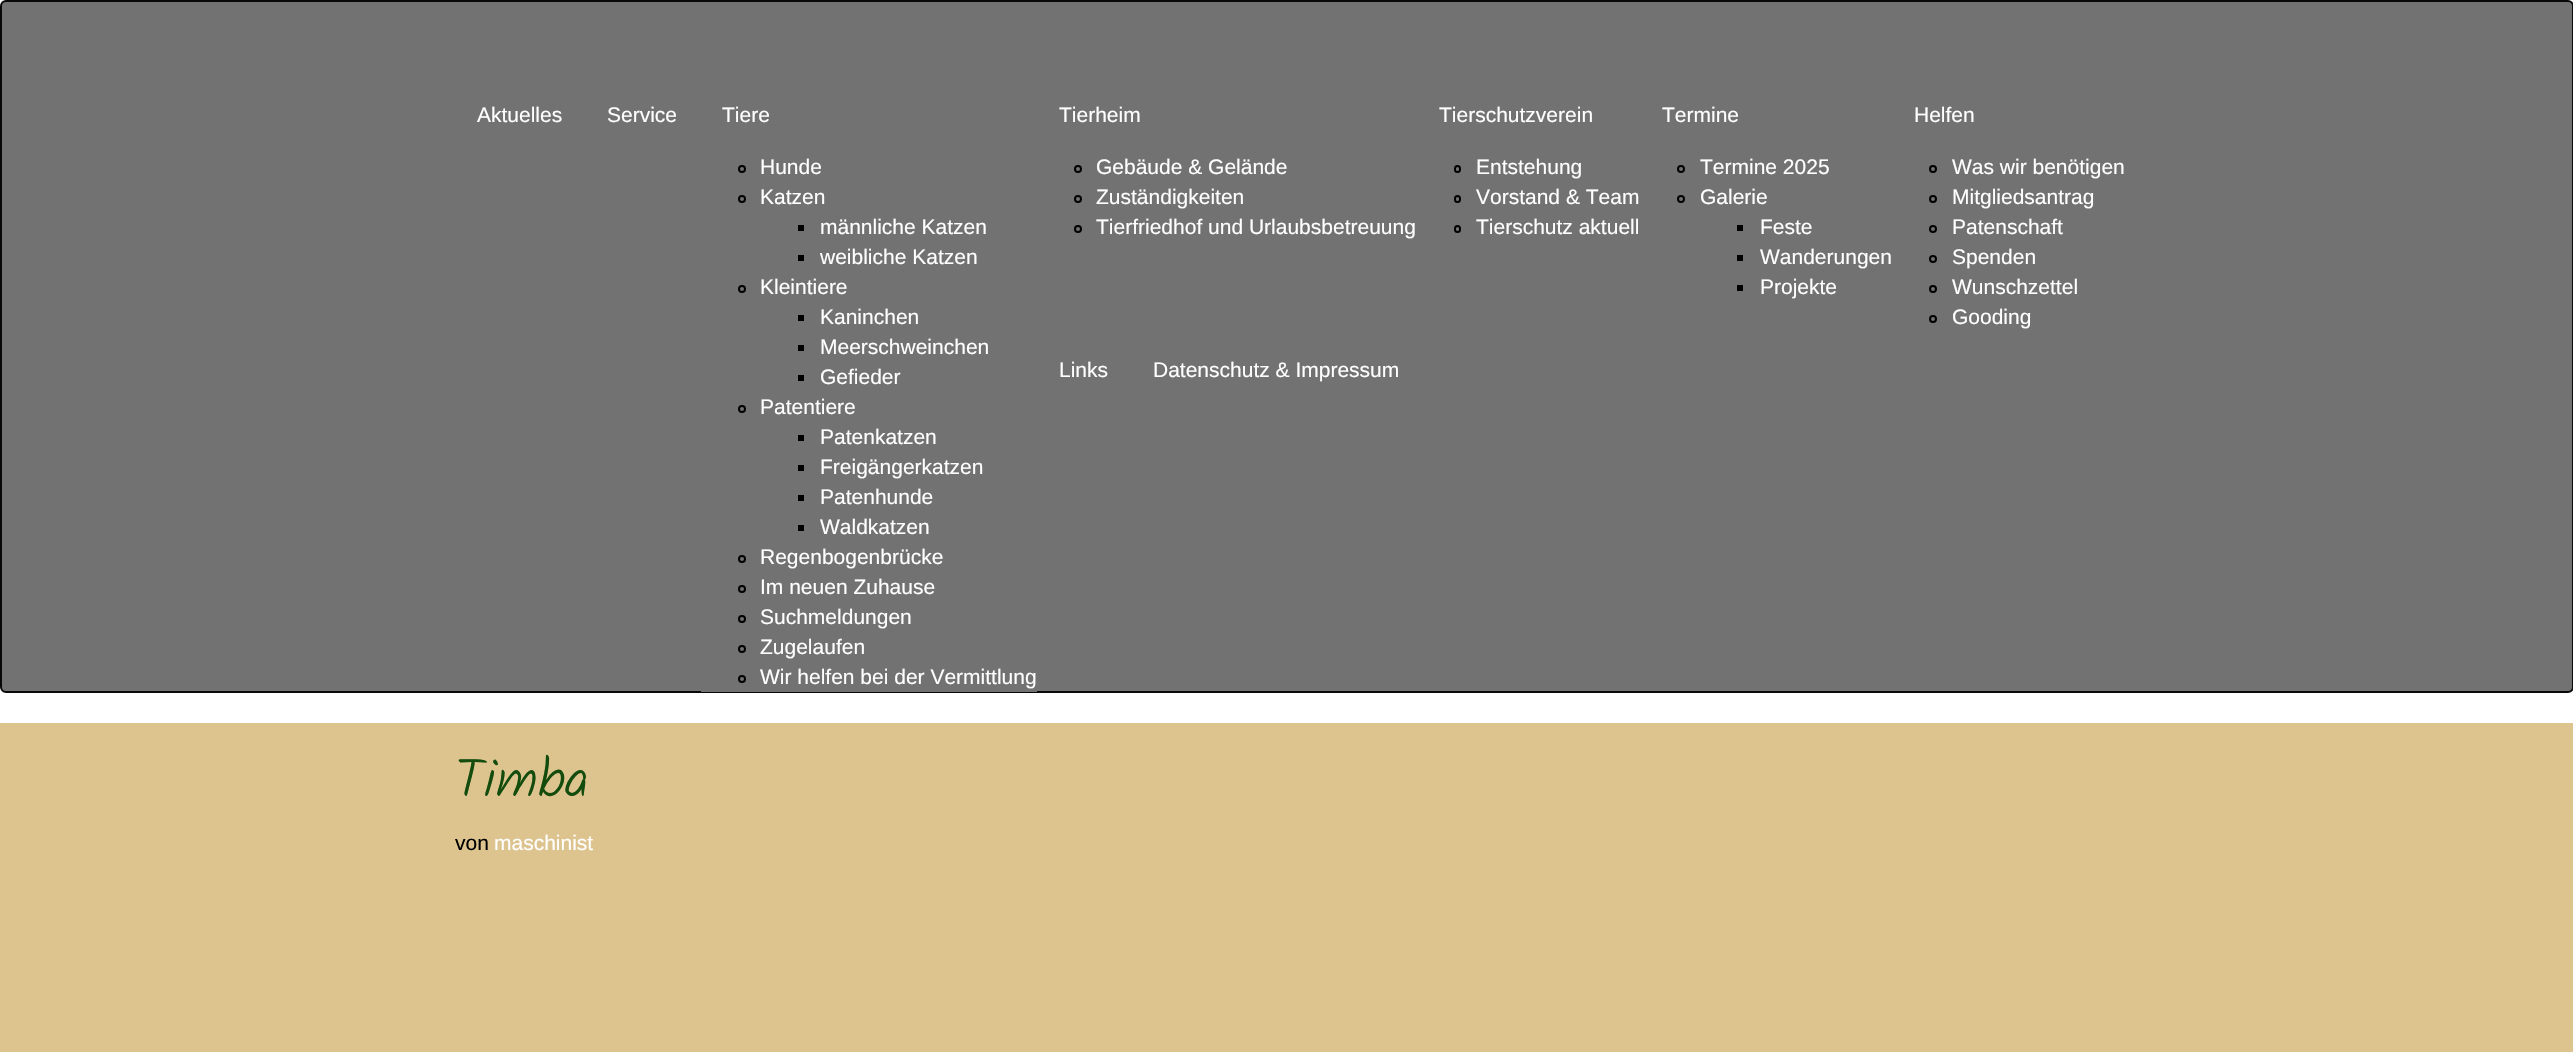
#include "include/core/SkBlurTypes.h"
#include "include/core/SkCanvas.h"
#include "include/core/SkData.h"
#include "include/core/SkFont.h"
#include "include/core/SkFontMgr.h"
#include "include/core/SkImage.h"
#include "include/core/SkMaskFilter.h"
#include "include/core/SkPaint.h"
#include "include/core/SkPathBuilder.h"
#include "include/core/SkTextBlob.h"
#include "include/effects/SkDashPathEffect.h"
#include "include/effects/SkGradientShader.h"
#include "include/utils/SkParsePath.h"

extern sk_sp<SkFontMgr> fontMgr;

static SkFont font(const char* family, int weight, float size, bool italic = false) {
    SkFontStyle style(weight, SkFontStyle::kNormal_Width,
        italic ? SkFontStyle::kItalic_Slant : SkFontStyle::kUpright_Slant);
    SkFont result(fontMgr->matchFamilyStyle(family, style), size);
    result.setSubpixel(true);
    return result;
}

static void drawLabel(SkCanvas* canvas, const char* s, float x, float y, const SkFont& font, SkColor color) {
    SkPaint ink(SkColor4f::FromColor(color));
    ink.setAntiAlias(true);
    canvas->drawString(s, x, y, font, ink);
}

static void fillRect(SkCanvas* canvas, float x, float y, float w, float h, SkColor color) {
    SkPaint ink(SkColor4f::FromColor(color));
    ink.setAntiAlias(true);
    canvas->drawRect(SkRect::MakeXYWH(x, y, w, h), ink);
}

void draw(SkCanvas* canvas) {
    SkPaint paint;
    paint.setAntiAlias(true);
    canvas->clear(0xFFFFFFFF);
    paint.setColor(0xFF727272);
    canvas->drawRoundRect(SkRect::MakeXYWH(1, 1, 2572, 691), 5, 5, paint);
    paint.setStroke(true);
    paint.setStrokeWidth(2);
    paint.setColor(0xFF080808);
    canvas->drawRoundRect(SkRect::MakeXYWH(1, 1, 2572, 691), 5, 5, paint);
    SkFont font1 = font("Liberation Sans", 400, 21);
    drawLabel(canvas, "Aktuelles", 477, 122, font1, 0xFFFFFFFF);
    drawLabel(canvas, "Service", 607, 122, font1, 0xFFFFFFFF);
    drawLabel(canvas, "Tiere", 722, 122, font1, 0xFFFFFFFF);
    fillRect(canvas, 701, 691, 336, 1, 0xFF727272);
    paint.setColor(0xFF000000);
    canvas->drawCircle(742, 169, 3, paint);
    drawLabel(canvas, "Hunde", 760, 174, font1, 0xFFFFFFFF);
    canvas->drawCircle(742, 199, 3, paint);
    drawLabel(canvas, "Katzen", 760, 204, font1, 0xFFFFFFFF);
    fillRect(canvas, 798, 225, 6, 6, 0xFF000000);
    drawLabel(canvas, "männliche Katzen", 820, 234, font1, 0xFFFFFFFF);
    fillRect(canvas, 798, 255, 6, 6, 0xFF000000);
    drawLabel(canvas, "weibliche Katzen", 820, 264, font1, 0xFFFFFFFF);
    canvas->drawCircle(742, 289, 3, paint);
    drawLabel(canvas, "Kleintiere", 760, 294, font1, 0xFFFFFFFF);
    fillRect(canvas, 798, 315, 6, 6, 0xFF000000);
    drawLabel(canvas, "Kaninchen", 820, 324, font1, 0xFFFFFFFF);
    fillRect(canvas, 798, 345, 6, 6, 0xFF000000);
    drawLabel(canvas, "Meerschweinchen", 820, 354, font1, 0xFFFFFFFF);
    fillRect(canvas, 798, 375, 6, 6, 0xFF000000);
    drawLabel(canvas, "Gefieder", 820, 384, font1, 0xFFFFFFFF);
    canvas->drawCircle(742, 409, 3, paint);
    drawLabel(canvas, "Patentiere", 760, 414, font1, 0xFFFFFFFF);
    fillRect(canvas, 798, 435, 6, 6, 0xFF000000);
    drawLabel(canvas, "Patenkatzen", 820, 444, font1, 0xFFFFFFFF);
    fillRect(canvas, 798, 465, 6, 6, 0xFF000000);
    drawLabel(canvas, "Freigängerkatzen", 820, 474, font1, 0xFFFFFFFF);
    fillRect(canvas, 798, 495, 6, 6, 0xFF000000);
    drawLabel(canvas, "Patenhunde", 820, 504, font1, 0xFFFFFFFF);
    fillRect(canvas, 798, 525, 6, 6, 0xFF000000);
    drawLabel(canvas, "Waldkatzen", 820, 534, font1, 0xFFFFFFFF);
    canvas->drawCircle(742, 559, 3, paint);
    drawLabel(canvas, "Regenbogenbrücke", 760, 564, font1, 0xFFFFFFFF);
    canvas->drawCircle(742, 589, 3, paint);
    drawLabel(canvas, "Im neuen Zuhause", 760, 594, font1, 0xFFFFFFFF);
    canvas->drawCircle(742, 619, 3, paint);
    drawLabel(canvas, "Suchmeldungen", 760, 624, font1, 0xFFFFFFFF);
    canvas->drawCircle(742, 649, 3, paint);
    drawLabel(canvas, "Zugelaufen", 760, 654, font1, 0xFFFFFFFF);
    canvas->drawCircle(742, 679, 3, paint);
    drawLabel(canvas, "Wir helfen bei der Vermittlung", 760, 684, font1, 0xFFFFFFFF);
    drawLabel(canvas, "Tierheim", 1059, 122, font1, 0xFFFFFFFF);
    canvas->drawCircle(1078, 169, 3, paint);
    drawLabel(canvas, "Gebäude & Gelände", 1096, 174, font1, 0xFFFFFFFF);
    canvas->drawCircle(1078, 199, 3, paint);
    drawLabel(canvas, "Zuständigkeiten", 1096, 204, font1, 0xFFFFFFFF);
    canvas->drawCircle(1078, 229, 3, paint);
    drawLabel(canvas, "Tierfriedhof und Urlaubsbetreuung", 1096, 234, font1, 0xFFFFFFFF);
    drawLabel(canvas, "Tierschutzverein", 1439, 122, font1, 0xFFFFFFFF);
    canvas->drawRoundRect(SkRect::MakeXYWH(1455, 166, 5, 6), 2.5f, 2.5f, paint);
    drawLabel(canvas, "Entstehung", 1476, 174, font1, 0xFFFFFFFF);
    canvas->drawRoundRect(SkRect::MakeXYWH(1455, 196, 5, 6), 2.5f, 2.5f, paint);
    drawLabel(canvas, "Vorstand & Team", 1476, 204, font1, 0xFFFFFFFF);
    canvas->drawRoundRect(SkRect::MakeXYWH(1455, 226, 5, 6), 2.5f, 2.5f, paint);
    drawLabel(canvas, "Tierschutz aktuell", 1476, 234, font1, 0xFFFFFFFF);
    drawLabel(canvas, "Termine", 1662, 122, font1, 0xFFFFFFFF);
    canvas->drawCircle(1681, 169, 3, paint);
    drawLabel(canvas, "Termine 2025", 1700, 174, font1, 0xFFFFFFFF);
    canvas->drawCircle(1681, 199, 3, paint);
    drawLabel(canvas, "Galerie", 1700, 204, font1, 0xFFFFFFFF);
    fillRect(canvas, 1737, 225, 6, 6, 0xFF000000);
    drawLabel(canvas, "Feste", 1760, 234, font1, 0xFFFFFFFF);
    fillRect(canvas, 1737, 255, 6, 6, 0xFF000000);
    drawLabel(canvas, "Wanderungen", 1760, 264, font1, 0xFFFFFFFF);
    fillRect(canvas, 1737, 285, 6, 6, 0xFF000000);
    drawLabel(canvas, "Projekte", 1760, 294, font1, 0xFFFFFFFF);
    drawLabel(canvas, "Helfen", 1914, 122, font1, 0xFFFFFFFF);
    canvas->drawCircle(1933, 169, 3, paint);
    drawLabel(canvas, "Was wir benötigen", 1952, 174, font1, 0xFFFFFFFF);
    canvas->drawCircle(1933, 199, 3, paint);
    drawLabel(canvas, "Mitgliedsantrag", 1952, 204, font1, 0xFFFFFFFF);
    canvas->drawCircle(1933, 229, 3, paint);
    drawLabel(canvas, "Patenschaft", 1952, 234, font1, 0xFFFFFFFF);
    canvas->drawCircle(1933, 259, 3, paint);
    drawLabel(canvas, "Spenden", 1952, 264, font1, 0xFFFFFFFF);
    canvas->drawCircle(1933, 289, 3, paint);
    drawLabel(canvas, "Wunschzettel", 1952, 294, font1, 0xFFFFFFFF);
    canvas->drawCircle(1933, 319, 3, paint);
    drawLabel(canvas, "Gooding", 1952, 324, font1, 0xFFFFFFFF);
    drawLabel(canvas, "Links", 1059, 377, font1, 0xFFFFFFFF);
    drawLabel(canvas, "Datenschutz & Impressum", 1153, 377, font1, 0xFFFFFFFF);
    fillRect(canvas, 0, 723, 2573, 329, 0xFFDDC38D);
    SkFont font2 = font("Kalam", 300, 54);
    drawLabel(canvas, "Timba", 455, 797, font2, 0xFF134C0D);
    drawLabel(canvas, "von", 455, 850, font1, 0xFF000000);
    drawLabel(canvas, "maschinist", 494, 850, font1, 0xFFFFFFFF);
}
